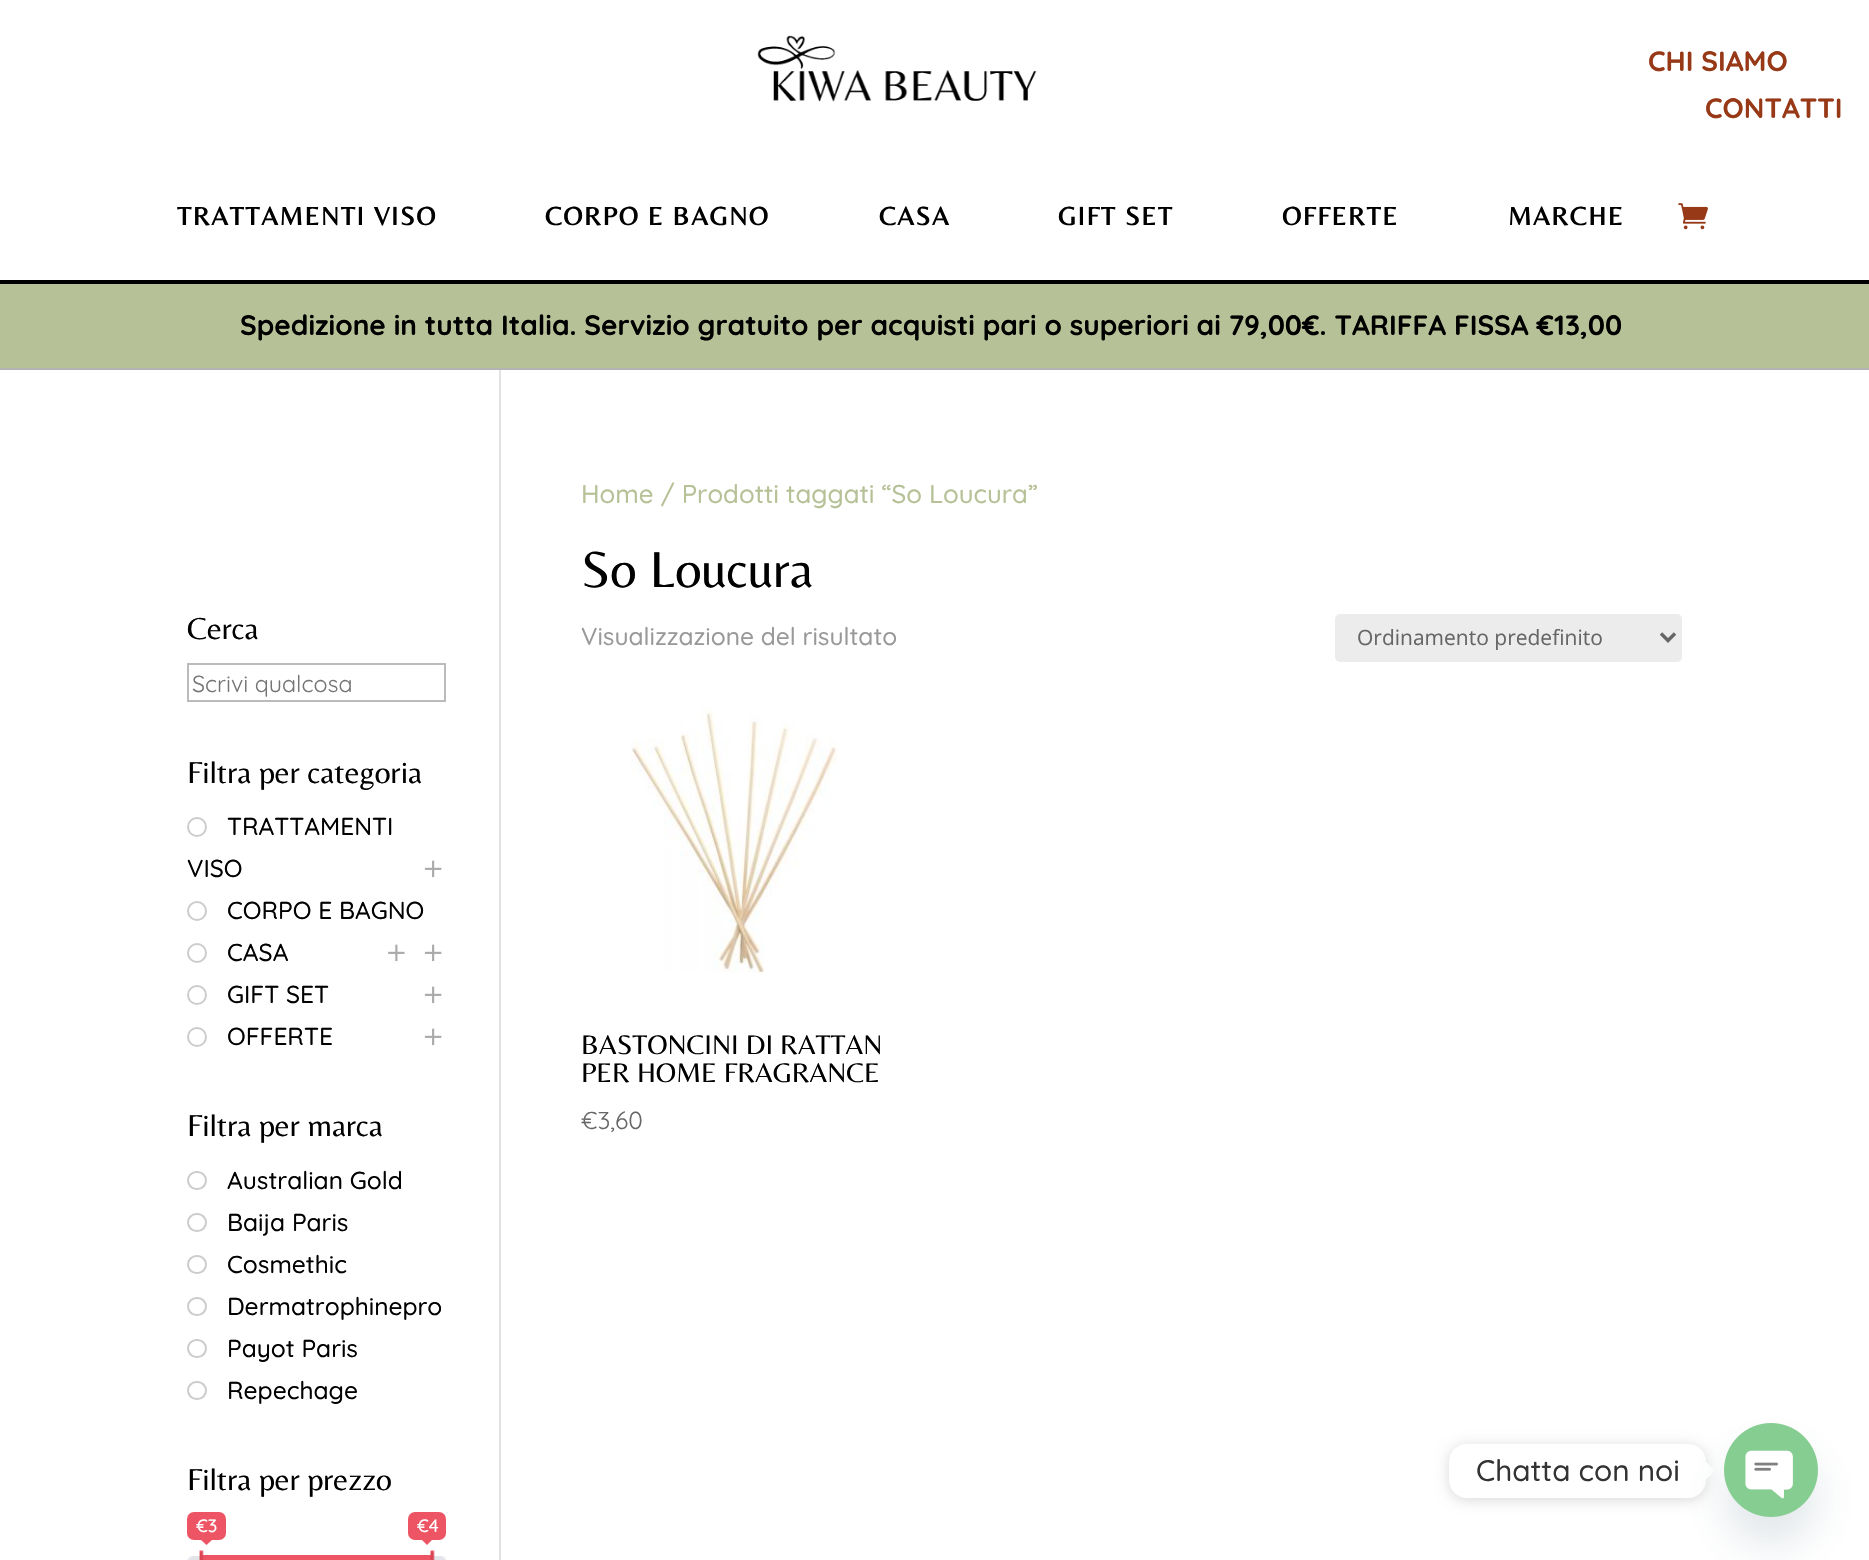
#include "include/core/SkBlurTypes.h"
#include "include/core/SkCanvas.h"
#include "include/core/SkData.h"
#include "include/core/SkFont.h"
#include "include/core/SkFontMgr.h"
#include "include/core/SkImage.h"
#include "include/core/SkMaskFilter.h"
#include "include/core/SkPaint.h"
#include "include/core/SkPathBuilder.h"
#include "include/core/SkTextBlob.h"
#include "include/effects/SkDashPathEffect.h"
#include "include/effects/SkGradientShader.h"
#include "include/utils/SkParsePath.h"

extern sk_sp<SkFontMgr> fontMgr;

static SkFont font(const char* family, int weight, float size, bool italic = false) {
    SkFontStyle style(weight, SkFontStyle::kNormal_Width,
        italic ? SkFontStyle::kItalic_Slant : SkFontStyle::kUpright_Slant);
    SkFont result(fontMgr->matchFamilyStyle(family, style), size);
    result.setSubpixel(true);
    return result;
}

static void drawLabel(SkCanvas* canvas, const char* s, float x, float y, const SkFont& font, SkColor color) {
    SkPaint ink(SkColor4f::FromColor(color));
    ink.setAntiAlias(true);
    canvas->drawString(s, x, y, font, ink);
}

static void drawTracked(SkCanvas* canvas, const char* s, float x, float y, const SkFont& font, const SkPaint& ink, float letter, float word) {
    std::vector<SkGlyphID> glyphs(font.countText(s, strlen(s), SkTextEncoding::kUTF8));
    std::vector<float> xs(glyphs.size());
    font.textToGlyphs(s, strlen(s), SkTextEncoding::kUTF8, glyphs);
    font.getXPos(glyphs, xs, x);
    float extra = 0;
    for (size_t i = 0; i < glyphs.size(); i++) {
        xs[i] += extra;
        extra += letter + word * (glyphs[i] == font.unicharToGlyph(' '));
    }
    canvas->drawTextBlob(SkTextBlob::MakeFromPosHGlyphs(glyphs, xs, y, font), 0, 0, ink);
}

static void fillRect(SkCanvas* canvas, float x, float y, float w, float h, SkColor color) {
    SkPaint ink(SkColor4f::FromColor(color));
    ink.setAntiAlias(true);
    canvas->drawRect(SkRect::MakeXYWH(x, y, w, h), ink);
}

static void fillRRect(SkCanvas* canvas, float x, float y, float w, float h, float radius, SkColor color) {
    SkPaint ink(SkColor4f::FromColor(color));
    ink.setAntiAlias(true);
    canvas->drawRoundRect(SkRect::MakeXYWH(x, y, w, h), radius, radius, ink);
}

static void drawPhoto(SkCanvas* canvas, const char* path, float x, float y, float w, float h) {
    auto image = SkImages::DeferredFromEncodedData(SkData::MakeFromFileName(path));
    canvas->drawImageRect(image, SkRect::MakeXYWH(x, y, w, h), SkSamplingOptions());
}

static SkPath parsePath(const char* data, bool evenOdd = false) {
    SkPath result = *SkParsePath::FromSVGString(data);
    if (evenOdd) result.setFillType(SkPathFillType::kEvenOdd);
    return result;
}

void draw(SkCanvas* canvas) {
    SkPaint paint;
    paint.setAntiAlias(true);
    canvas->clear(0xFFFFFFFF);
    drawPhoto(canvas, "assets/img1.png", 757, 35, 280, 67);
    SkFont font1 = font("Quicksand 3", 300, 28);
    drawLabel(canvas, "CHI SIAMO", 1648, 71, font1, 0xFF973917);
    drawLabel(canvas, "CONTATTI", 1705, 118, font1, 0xFF973917);
    fillRect(canvas, 0, 280, 1869, 4, 0xFF000000);
    SkFont font2 = font("Belleza", 700, 26.25f);
    paint.setColor(0xFF000000);
    drawTracked(canvas, "TRATTAMENTI VISO", 177, 225, font2, paint, 1.75f, 0);
    drawTracked(canvas, "CORPO E BAGNO", 545, 225, font2, paint, 1.75f, 0);
    drawTracked(canvas, "CASA", 879, 225, font2, paint, 1.75f, 0);
    drawTracked(canvas, "GIFT SET", 1058, 225, font2, paint, 1.75f, 0);
    drawTracked(canvas, "OFFERTE", 1282, 225, font2, paint, 1.75f, 0);
    drawTracked(canvas, "MARCHE", 1508, 225, font2, paint, 1.75f, 0);
    drawPhoto(canvas, "assets/img2.png", 1678, 203, 30, 27);
    fillRect(canvas, 0, 284, 1869, 84, 0xFFB6C197);
    fillRect(canvas, 499, 369, 2, 1191, 0xFFE2E2E2);
    fillRect(canvas, 0, 368, 1869, 2, 0xFFB3B3B3);
    drawLabel(canvas, "Spedizione in tutta Italia. Servizio gratuito per acquisti pari o superiori ai 79,00€. TARIFFA FISSA €13,00", 240, 335, font1, 0xFF000000);
    SkFont font3 = font("Belleza", 400, 31.5f);
    drawLabel(canvas, "Cerca", 187, 639, font3, 0xFF000000);
    paint.setStroke(true);
    paint.setStrokeWidth(2);
    paint.setColor(0xFFBBBBBB);
    canvas->drawRect(SkRect::MakeXYWH(188, 664, 257, 37), paint);
    SkFont font4 = font("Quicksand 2", 300, 23.25f);
    drawLabel(canvas, "Scrivi qualcosa", 192, 692, font4, 0xFF757575);
    drawLabel(canvas, "Filtra per categoria", 187, 783, font3, 0xFF000000);
    paint.setColor(0xFFCCCCCC);
    canvas->drawCircle(197, 827, 9, paint);
    SkFont font5 = font("Quicksand", 300, 24.5f);
    drawLabel(canvas, "TRATTAMENTI", 227, 835, font5, 0xFF000000);
    drawLabel(canvas, "VISO", 187, 877, font5, 0xFF000000);
    drawPhoto(canvas, "assets/img3.png", 424, 860, 18, 18);
    canvas->drawCircle(197, 911, 9, paint);
    drawLabel(canvas, "CORPO E BAGNO", 227, 919, font5, 0xFF000000);
    drawPhoto(canvas, "assets/img3.png", 424, 944, 18, 18);
    canvas->drawCircle(197, 953, 9, paint);
    drawLabel(canvas, "CASA", 227, 961, font5, 0xFF000000);
    drawPhoto(canvas, "assets/img4.png", 388, 944, 17, 18);
    canvas->drawCircle(197, 995, 9, paint);
    drawLabel(canvas, "GIFT SET", 227, 1003, font5, 0xFF000000);
    drawPhoto(canvas, "assets/img3.png", 424, 986, 18, 18);
    canvas->drawCircle(197, 1037, 9, paint);
    drawLabel(canvas, "OFFERTE", 227, 1045, font5, 0xFF000000);
    drawPhoto(canvas, "assets/img3.png", 424, 1028, 18, 18);
    drawLabel(canvas, "Filtra per marca", 187, 1136, font3, 0xFF000000);
    canvas->drawRoundRect(SkRect::MakeXYWH(188, 1172, 18, 17), 8.5f, 8.5f, paint);
    drawLabel(canvas, "Australian Gold", 227, 1189, font5, 0xFF000000);
    canvas->drawRoundRect(SkRect::MakeXYWH(188, 1214, 18, 17), 8.5f, 8.5f, paint);
    drawLabel(canvas, "Baija Paris", 227, 1231, font5, 0xFF000000);
    canvas->drawRoundRect(SkRect::MakeXYWH(188, 1256, 18, 17), 8.5f, 8.5f, paint);
    drawLabel(canvas, "Cosmethic", 227, 1273, font5, 0xFF000000);
    canvas->drawRoundRect(SkRect::MakeXYWH(188, 1298, 18, 17), 8.5f, 8.5f, paint);
    drawLabel(canvas, "Dermatrophinepro", 227, 1315, font5, 0xFF000000);
    canvas->drawRoundRect(SkRect::MakeXYWH(188, 1340, 18, 17), 8.5f, 8.5f, paint);
    drawLabel(canvas, "Payot Paris", 227, 1357, font5, 0xFF000000);
    canvas->drawRoundRect(SkRect::MakeXYWH(188, 1382, 18, 17), 8.5f, 8.5f, paint);
    drawLabel(canvas, "Repechage", 227, 1399, font5, 0xFF000000);
    drawLabel(canvas, "Filtra per prezzo", 187, 1490, font3, 0xFF000000);
    fillRRect(canvas, 187, 1512, 39, 28, 7, 0xFFED5565);
    SkFont font6 = font("Quicksand", 300, 18);
    drawLabel(canvas, "€3", 196, 1532, font6, 0xFFFFFFFF);
    paint.setStroke(false);
    paint.setColor(0xFFED5565);
    canvas->drawPath(parsePath("M201 1540H212L206.5 1545Z"), paint);
    fillRRect(canvas, 408, 1512, 38, 28, 7, 0xFFED5565);
    drawLabel(canvas, "€4", 417, 1532, font6, 0xFFFFFFFF);
    canvas->drawPath(parsePath("M422 1540H432L427 1545Z"), paint);
    drawPhoto(canvas, "assets/img5.png", 187, 1556, 13, 4);
    drawPhoto(canvas, "assets/img6.png", 433, 1556, 13, 4);
    fillRect(canvas, 201, 1555, 232, 5, 0xFFED5565);
    drawPhoto(canvas, "assets/img7.png", 199, 1550, 5, 10);
    drawPhoto(canvas, "assets/img8.png", 430, 1550, 5, 10);
    SkFont font7 = font("Quicksand", 300, 25.75f);
    drawLabel(canvas, "Home / Prodotti taggati “So Loucura”", 581, 503, font7, 0xFFB6C197);
    SkFont font8 = font("Belleza", 400, 52.5f);
    drawLabel(canvas, "So Loucura", 581, 587, font8, 0xFF000000);
    drawLabel(canvas, "Visualizzazione del risultato", 581, 645, font5, 0xFF999999);
    fillRRect(canvas, 1335, 614, 347, 48, 5, 0xFFECECEC);
    paint.setStroke(true);
    paint.setStrokeWidth(3.5f);
    paint.setColor(0xFF666666);
    canvas->drawPath(parsePath("M1661 633.5L1668 640.5L1675 633.5"), paint);
    SkFont font9 = font("Open Sans", 400, 21);
    drawLabel(canvas, "Ordinamento predefinito", 1357, 645, font9, 0xFF666666);
    drawPhoto(canvas, "assets/img9.png", 631, 707, 207, 266);
    SkFont font10 = font("Belleza", 400, 28);
    drawLabel(canvas, "BASTONCINI DI RATTAN", 581, 1054, font10, 0xFF000000);
    drawLabel(canvas, "PER HOME FRAGRANCE", 581, 1082, font10, 0xFF000000);
    SkFont font11 = font("Quicksand 2", 300, 24.5f);
    drawLabel(canvas, "€3,60", 581, 1129, font11, 0xFF666666);
    paint.setStroke(false);
    paint.setColor(0x26000000);
    paint.setMaskFilter(SkMaskFilter::MakeBlur(kNormal_SkBlurStyle, 7));
    canvas->drawRoundRect(SkRect::MakeXYWH(1449, 1446, 257, 54), 18, 18, paint);
    paint.setMaskFilter(nullptr);
    fillRRect(canvas, 1449, 1444, 257, 54, 18, 0xFFFFFFFF);
    SkFont font12 = font("Quicksand", 300, 29.75f);
    drawLabel(canvas, "Chatta con noi", 1476, 1481, font12, 0xFF333333);
    paint.setColor(0xFFFFFFFF);
    canvas->drawPath(parsePath("M1706 1479.5V1462L1715 1471Z"), paint);
    paint.setColor(0x2949687E);
    paint.setMaskFilter(SkMaskFilter::MakeBlur(kNormal_SkBlurStyle, 21));
    canvas->drawRoundRect(SkRect::MakeXYWH(1724, 1451, 94, 94), 47, 47, paint);
    paint.setMaskFilter(nullptr);
    drawPhoto(canvas, "assets/img10.png", 1724, 1423, 94, 94);
}
